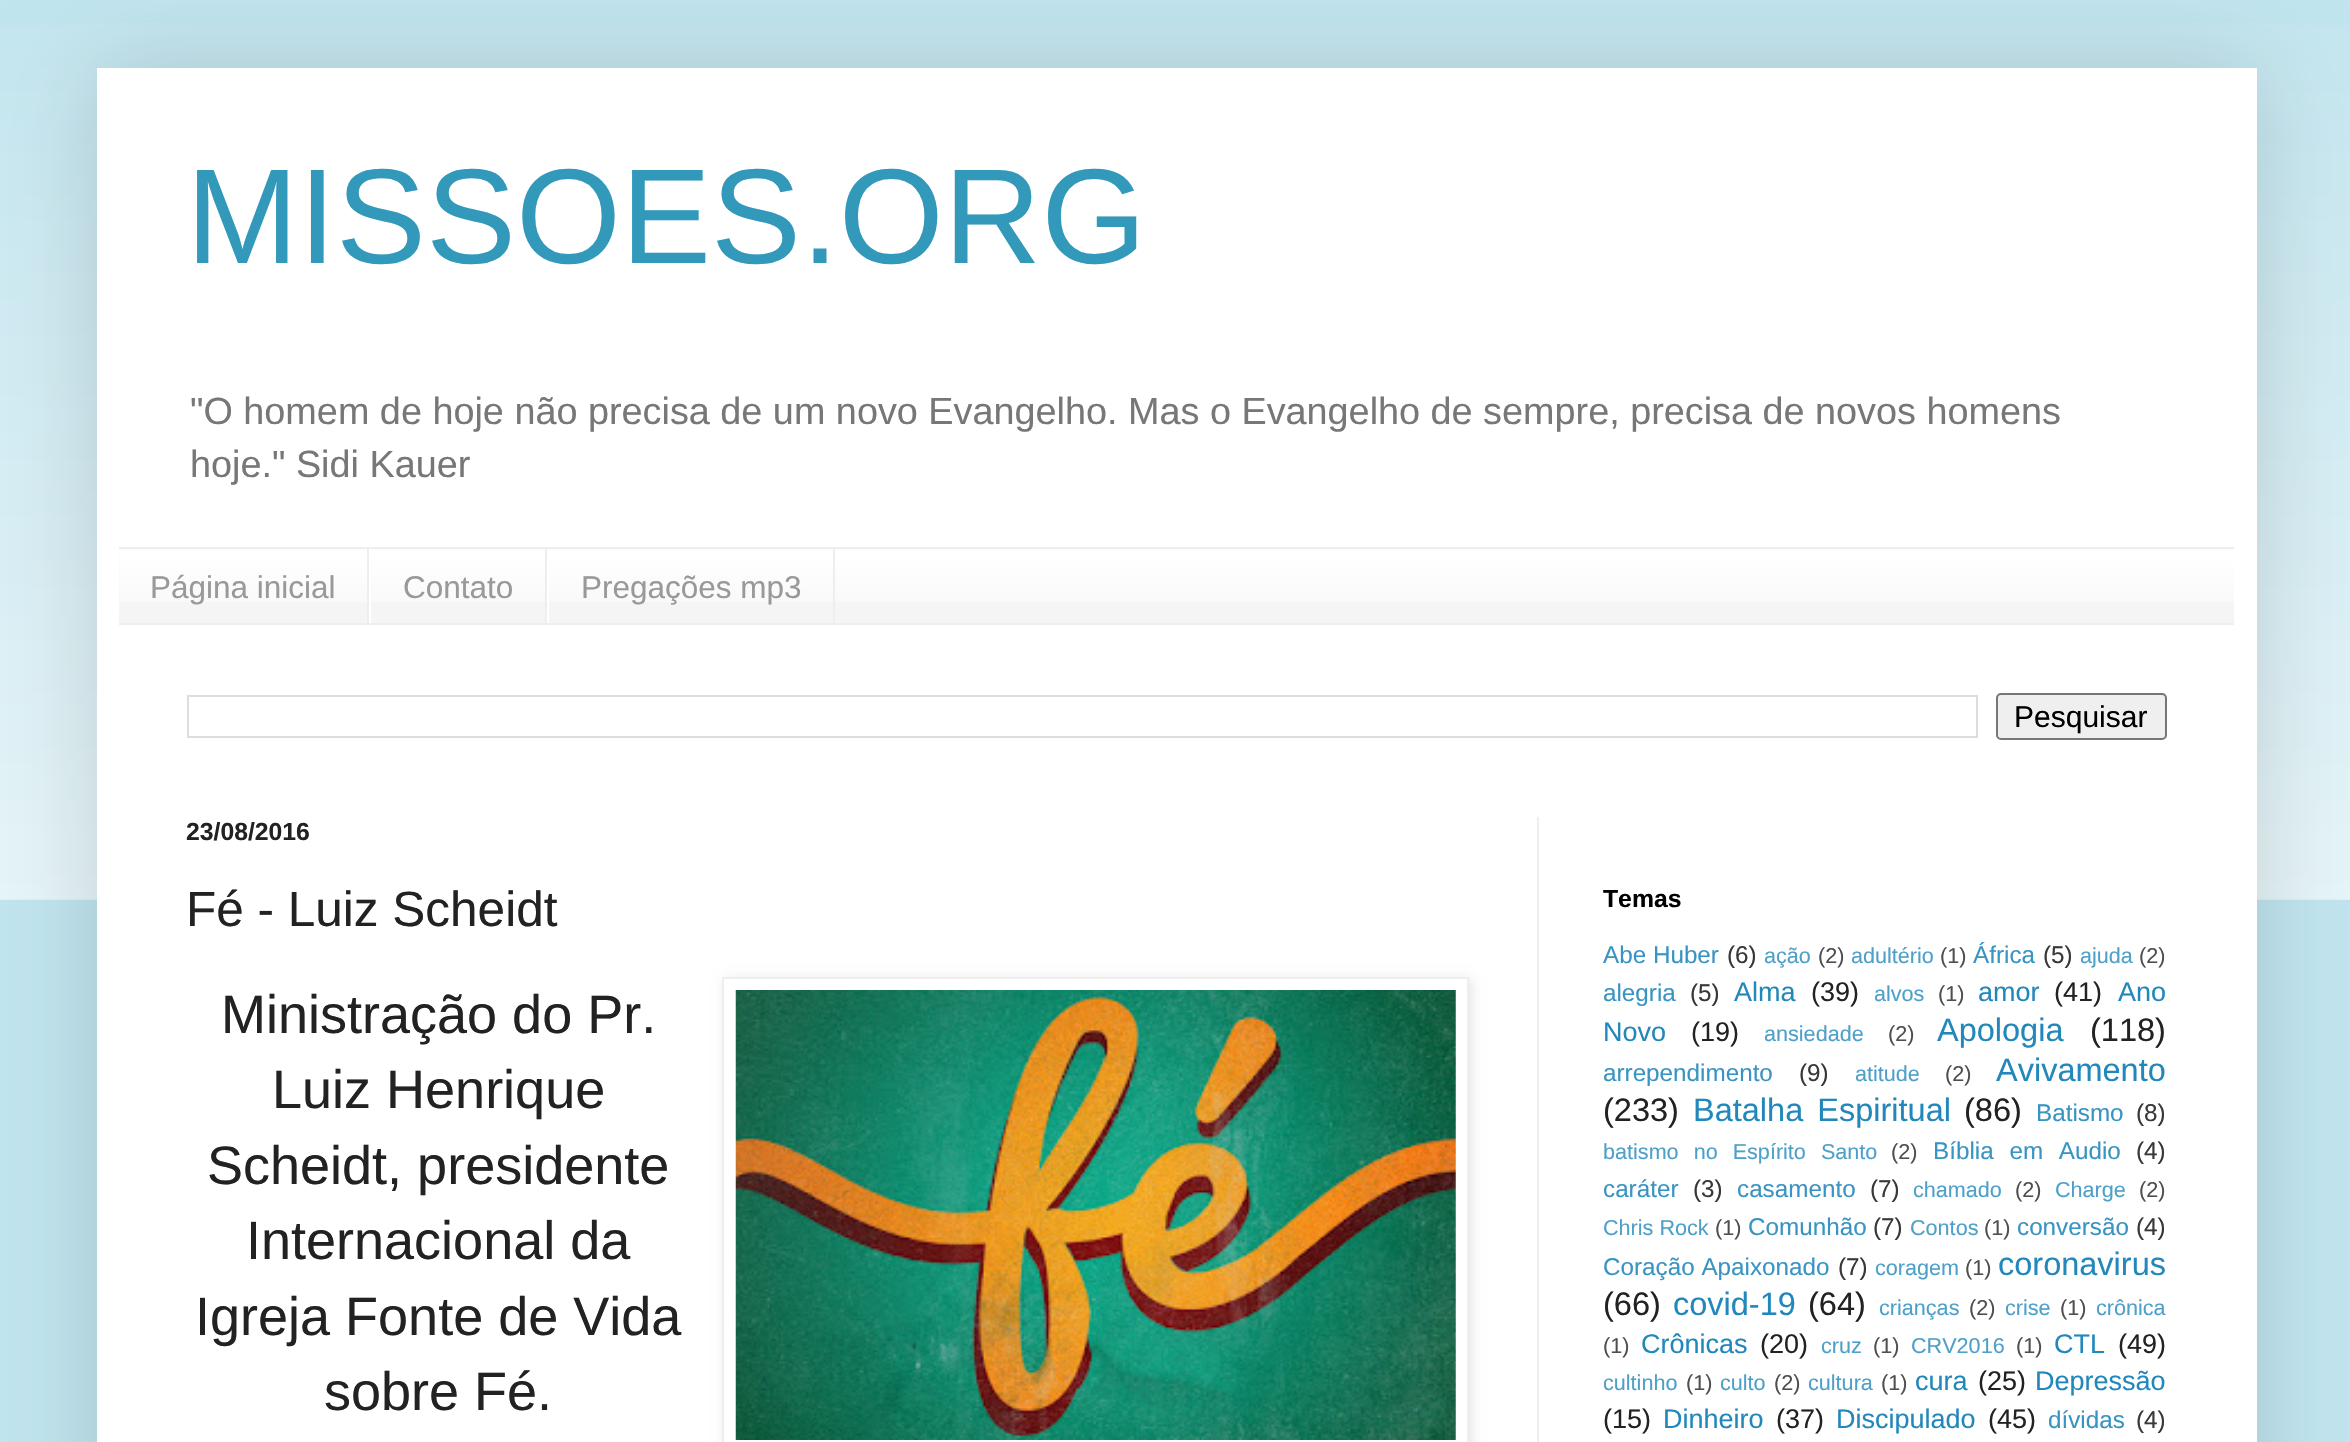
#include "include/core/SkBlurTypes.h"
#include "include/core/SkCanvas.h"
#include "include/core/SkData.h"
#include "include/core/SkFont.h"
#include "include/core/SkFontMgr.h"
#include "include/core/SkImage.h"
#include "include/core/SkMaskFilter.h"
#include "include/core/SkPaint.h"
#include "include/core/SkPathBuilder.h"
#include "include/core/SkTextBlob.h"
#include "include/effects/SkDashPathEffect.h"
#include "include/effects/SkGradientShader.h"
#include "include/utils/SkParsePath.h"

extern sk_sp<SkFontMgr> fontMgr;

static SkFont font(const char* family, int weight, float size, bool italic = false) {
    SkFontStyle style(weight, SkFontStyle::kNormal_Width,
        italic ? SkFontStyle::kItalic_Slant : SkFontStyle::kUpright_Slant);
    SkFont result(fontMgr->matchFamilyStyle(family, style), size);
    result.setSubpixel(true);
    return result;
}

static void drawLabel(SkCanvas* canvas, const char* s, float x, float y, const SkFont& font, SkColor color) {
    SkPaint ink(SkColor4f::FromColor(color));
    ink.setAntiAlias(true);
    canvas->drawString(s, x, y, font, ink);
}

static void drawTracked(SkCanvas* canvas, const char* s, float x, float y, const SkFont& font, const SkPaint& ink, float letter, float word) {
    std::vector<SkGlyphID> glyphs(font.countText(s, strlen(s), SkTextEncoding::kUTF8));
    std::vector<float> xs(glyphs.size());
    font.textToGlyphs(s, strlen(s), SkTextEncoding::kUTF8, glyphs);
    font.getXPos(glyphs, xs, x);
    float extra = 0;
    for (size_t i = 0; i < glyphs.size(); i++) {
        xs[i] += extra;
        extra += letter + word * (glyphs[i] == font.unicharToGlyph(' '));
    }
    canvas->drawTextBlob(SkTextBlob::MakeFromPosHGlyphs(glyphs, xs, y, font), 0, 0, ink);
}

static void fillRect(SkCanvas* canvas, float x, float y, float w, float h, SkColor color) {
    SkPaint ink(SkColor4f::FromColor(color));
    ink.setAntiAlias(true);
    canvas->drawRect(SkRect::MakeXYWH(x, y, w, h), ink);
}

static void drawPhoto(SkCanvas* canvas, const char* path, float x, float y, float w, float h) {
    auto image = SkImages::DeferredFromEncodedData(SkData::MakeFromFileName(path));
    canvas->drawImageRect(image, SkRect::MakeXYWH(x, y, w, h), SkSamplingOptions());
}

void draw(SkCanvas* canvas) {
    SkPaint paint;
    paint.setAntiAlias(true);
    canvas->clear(0xFFC1E5EF);
    drawPhoto(canvas, "assets/img1.png", 0, 23, 2350, 877);
    paint.setColor(0x26000000);
    paint.setMaskFilter(SkMaskFilter::MakeBlur(kNormal_SkBlurStyle, 45));
    canvas->drawRect(SkRect::MakeXYWH(97, 68, 2160, 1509), paint);
    paint.setMaskFilter(nullptr);
    fillRect(canvas, 97, 68, 2160, 1374, 0xFFFFFFFF);
    SkFont font1 = font("Liberation Sans", 400, 135);
    drawLabel(canvas, "MISSOES.ORG", 186, 263, font1, 0xFF3399BB);
    SkFont font2 = font("Liberation Sans", 400, 37.8f);
    drawLabel(canvas, "\"O homem de hoje não precisa de um novo Evangelho. Mas o Evangelho de sempre, precisa de novos homens", 190, 424, font2, 0xFF777777);
    drawLabel(canvas, "hoje.\" Sidi Kauer", 190, 477, font2, 0xFF777777);
    fillRect(canvas, 119, 549, 2115, 74, 0xFFF5F5F5);
    drawPhoto(canvas, "assets/img2.png", 119, 549, 2115, 53);
    fillRect(canvas, 119, 547, 2115, 2, 0xFFEEEEEE);
    fillRect(canvas, 119, 623, 2115, 2, 0xFFEEEEEE);
    fillRect(canvas, 367, 549, 2, 74, 0xFFEEEEEE);
    SkFont font3 = font("Liberation Sans", 400, 31.5f);
    drawLabel(canvas, "Página inicial", 150, 598, font3, 0xFF999999);
    fillRect(canvas, 545, 549, 2, 74, 0xFFEEEEEE);
    fillRect(canvas, 369, 549, 2, 74, 0xFFFFFFFF);
    drawLabel(canvas, "Contato", 403, 598, font3, 0xFF999999);
    fillRect(canvas, 833, 549, 2, 74, 0xFFEEEEEE);
    fillRect(canvas, 547, 549, 2, 74, 0xFFFFFFFF);
    drawLabel(canvas, "Pregações mp3", 581, 598, font3, 0xFF999999);
    paint.setStroke(true);
    paint.setStrokeWidth(2);
    paint.setColor(0xFFDDDDDD);
    canvas->drawRect(SkRect::MakeXYWH(188, 696, 1789, 41), paint);
    paint.setStroke(false);
    paint.setColor(0xFFEFEFEF);
    canvas->drawRoundRect(SkRect::MakeXYWH(1997, 694, 169, 45), 4, 4, paint);
    paint.setStroke(true);
    paint.setColor(0xFF767676);
    canvas->drawRoundRect(SkRect::MakeXYWH(1997, 694, 169, 45), 4, 4, paint);
    SkFont font4 = font("Liberation Sans", 400, 30);
    drawLabel(canvas, "Pesquisar", 2014, 727, font4, 0xFF000000);
    fillRect(canvas, 1537, 817, 2, 625, 0xFFEEEEEE);
    SkFont font5 = font("Liberation Sans", 700, 24.75f);
    drawLabel(canvas, "23/08/2016", 186, 840, font5, 0xFF222222);
    SkFont font6 = font("Liberation Sans", 400, 49.5f);
    drawLabel(canvas, "Fé - Luiz Scheidt", 186, 926, font6, 0xFF222222);
    SkFont font7 = font("Liberation Sans", 400, 54);
    drawLabel(canvas, "Ministração do Pr.", 221, 1033, font7, 0xFF222222);
    drawLabel(canvas, "Luiz Henrique", 272, 1108, font7, 0xFF222222);
    drawLabel(canvas, "Scheidt, presidente", 207, 1184, font7, 0xFF222222);
    drawLabel(canvas, "Internacional da", 246, 1259, font7, 0xFF222222);
    drawLabel(canvas, "Igreja Fonte de Vida", 195, 1335, font7, 0xFF222222);
    drawLabel(canvas, "sobre Fé.", 324, 1410, font7, 0xFF222222);
    paint.setStroke(false);
    paint.setColor(0x1A000000);
    paint.setMaskFilter(SkMaskFilter::MakeBlur(kNormal_SkBlurStyle, 5.5f));
    canvas->drawRect(SkRect::MakeXYWH(725, 979, 747, 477), paint);
    paint.setMaskFilter(nullptr);
    paint.setColor(0xFFFFFFFF);
    canvas->drawRect(SkRect::MakeXYWH(723, 978, 745, 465), paint);
    paint.setStroke(true);
    paint.setColor(0xFFEEEEEE);
    canvas->drawRect(SkRect::MakeXYWH(723, 978, 745, 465), paint);
    drawPhoto(canvas, "assets/img3.png", 735, 990, 721, 450);
    drawLabel(canvas, "Temas", 1603, 907, font5, 0xFF000000);
    SkFont font8 = font("Liberation Sans", 400, 24.25f);
    drawLabel(canvas, "Abe Huber", 1603, 963, font8, 0xFF3894C2);
    drawLabel(canvas, "(6)", 1727, 963, font8, 0xFF383838);
    SkFont font9 = font("Liberation Sans", 400, 21.6f);
    drawLabel(canvas, "ação", 1764, 963, font9, 0xFF4EA0C9);
    drawLabel(canvas, "(2)", 1818, 963, font9, 0xFF4E4E4E);
    drawLabel(canvas, "adultério", 1851, 963, font9, 0xFF4EA0C9);
    drawLabel(canvas, "(1)", 1940, 963, font9, 0xFF4E4E4E);
    drawLabel(canvas, "África", 1973, 963, font8, 0xFF3894C2);
    drawLabel(canvas, "(5)", 2043, 963, font8, 0xFF383838);
    drawLabel(canvas, "ajuda", 2080, 963, font9, 0xFF4EA0C9);
    drawLabel(canvas, "(2)", 2139, 963, font9, 0xFF4E4E4E);
    drawLabel(canvas, "alegria", 1603, 1001, font8, 0xFF3894C2);
    drawLabel(canvas, "(5)", 1690, 1001, font8, 0xFF383838);
    SkFont font10 = font("Liberation Sans", 400, 27);
    drawLabel(canvas, "Alma", 1734, 1001, font10, 0xFF2288BB);
    drawLabel(canvas, "(39)", 1811, 1001, font10, 0xFF222222);
    drawLabel(canvas, "alvos", 1874, 1001, font9, 0xFF4EA0C9);
    drawLabel(canvas, "(1)", 1938, 1001, font9, 0xFF4E4E4E);
    drawLabel(canvas, "amor", 1978, 1001, font10, 0xFF2288BB);
    drawLabel(canvas, "(41)", 2054, 1001, font10, 0xFF222222);
    drawLabel(canvas, "Ano", 2118, 1001, font10, 0xFF2288BB);
    drawLabel(canvas, "Novo", 1603, 1041, font10, 0xFF2288BB);
    drawLabel(canvas, "(19)", 1691, 1041, font10, 0xFF222222);
    drawLabel(canvas, "ansiedade", 1764, 1041, font9, 0xFF4EA0C9);
    drawLabel(canvas, "(2)", 1888, 1041, font9, 0xFF4E4E4E);
    SkFont font11 = font("Liberation Sans", 400, 32.5f);
    drawLabel(canvas, "Apologia", 1937, 1041, font11, 0xFF2288BB);
    drawLabel(canvas, "(118)", 2090, 1041, font11, 0xFF222222);
    drawLabel(canvas, "arrependimento", 1603, 1081, font8, 0xFF3894C2);
    drawLabel(canvas, "(9)", 1799, 1081, font8, 0xFF383838);
    drawLabel(canvas, "atitude", 1855, 1081, font9, 0xFF4EA0C9);
    drawLabel(canvas, "(2)", 1945, 1081, font9, 0xFF4E4E4E);
    drawLabel(canvas, "Avivamento", 1996, 1081, font11, 0xFF2288BB);
    drawLabel(canvas, "(233)", 1603, 1121, font11, 0xFF222222);
    paint.setStroke(false);
    paint.setColor(0xFF2288BB);
    drawTracked(canvas, "Batalha Espiritual", 1693, 1121, font11, paint, 0, 5);
    drawLabel(canvas, "(86)", 1964, 1121, font11, 0xFF222222);
    drawLabel(canvas, "Batismo", 2036, 1121, font8, 0xFF3894C2);
    drawLabel(canvas, "(8)", 2136, 1121, font8, 0xFF383838);
    paint.setColor(0xFF4EA0C9);
    drawTracked(canvas, "batismo no Espírito Santo", 1603, 1159, font9, paint, 0, 9);
    drawLabel(canvas, "(2)", 1891, 1159, font9, 0xFF4E4E4E);
    paint.setColor(0xFF3894C2);
    drawTracked(canvas, "Bíblia em Audio", 1933, 1159, font8, paint, 0, 9);
    drawLabel(canvas, "(4)", 2136, 1159, font8, 0xFF383838);
    drawLabel(canvas, "caráter", 1603, 1197, font8, 0xFF3894C2);
    drawLabel(canvas, "(3)", 1693, 1197, font8, 0xFF383838);
    drawLabel(canvas, "casamento", 1737, 1197, font8, 0xFF3894C2);
    drawLabel(canvas, "(7)", 1870, 1197, font8, 0xFF383838);
    drawLabel(canvas, "chamado", 1913, 1197, font9, 0xFF4EA0C9);
    drawLabel(canvas, "(2)", 2015, 1197, font9, 0xFF4E4E4E);
    drawLabel(canvas, "Charge", 2055, 1197, font9, 0xFF4EA0C9);
    drawLabel(canvas, "(2)", 2139, 1197, font9, 0xFF4E4E4E);
    drawLabel(canvas, "Chris Rock", 1603, 1235, font9, 0xFF4EA0C9);
    drawLabel(canvas, "(1)", 1715, 1235, font9, 0xFF4E4E4E);
    drawLabel(canvas, "Comunhão", 1748, 1235, font8, 0xFF3894C2);
    drawLabel(canvas, "(7)", 1873, 1235, font8, 0xFF383838);
    drawLabel(canvas, "Contos", 1910, 1235, font9, 0xFF4EA0C9);
    drawLabel(canvas, "(1)", 1984, 1235, font9, 0xFF4E4E4E);
    drawLabel(canvas, "conversão", 2017, 1235, font8, 0xFF3894C2);
    drawLabel(canvas, "(4)", 2136, 1235, font8, 0xFF383838);
    drawLabel(canvas, "Coração Apaixonado", 1603, 1275, font8, 0xFF3894C2);
    drawLabel(canvas, "(7)", 1838, 1275, font8, 0xFF383838);
    drawLabel(canvas, "coragem", 1875, 1275, font9, 0xFF4EA0C9);
    drawLabel(canvas, "(1)", 1965, 1275, font9, 0xFF4E4E4E);
    drawLabel(canvas, "coronavirus", 1998, 1275, font11, 0xFF2288BB);
    drawLabel(canvas, "(66)", 1603, 1315, font11, 0xFF222222);
    drawLabel(canvas, "covid-19", 1673, 1315, font11, 0xFF2288BB);
    drawLabel(canvas, "(64)", 1808, 1315, font11, 0xFF222222);
    drawLabel(canvas, "crianças", 1879, 1315, font9, 0xFF4EA0C9);
    drawLabel(canvas, "(2)", 1969, 1315, font9, 0xFF4E4E4E);
    drawLabel(canvas, "crise", 2005, 1315, font9, 0xFF4EA0C9);
    drawLabel(canvas, "(1)", 2060, 1315, font9, 0xFF4E4E4E);
    drawLabel(canvas, "crônica", 2096, 1315, font9, 0xFF4EA0C9);
    drawLabel(canvas, "(1)", 1603, 1353, font9, 0xFF4E4E4E);
    drawLabel(canvas, "Crônicas", 1641, 1353, font10, 0xFF2288BB);
    drawLabel(canvas, "(20)", 1760, 1353, font10, 0xFF222222);
    drawLabel(canvas, "cruz", 1821, 1353, font9, 0xFF4EA0C9);
    drawLabel(canvas, "(1)", 1873, 1353, font9, 0xFF4E4E4E);
    drawLabel(canvas, "CRV2016", 1911, 1353, font9, 0xFF4EA0C9);
    drawLabel(canvas, "(1)", 2016, 1353, font9, 0xFF4E4E4E);
    drawLabel(canvas, "CTL", 2054, 1353, font10, 0xFF2288BB);
    drawLabel(canvas, "(49)", 2118, 1353, font10, 0xFF222222);
    drawLabel(canvas, "cultinho", 1603, 1390, font9, 0xFF4EA0C9);
    drawLabel(canvas, "(1)", 1686, 1390, font9, 0xFF4E4E4E);
    drawLabel(canvas, "culto", 1720, 1390, font9, 0xFF4EA0C9);
    drawLabel(canvas, "(2)", 1774, 1390, font9, 0xFF4E4E4E);
    drawLabel(canvas, "cultura", 1808, 1390, font9, 0xFF4EA0C9);
    drawLabel(canvas, "(1)", 1881, 1390, font9, 0xFF4E4E4E);
    drawLabel(canvas, "cura", 1915, 1390, font10, 0xFF2288BB);
    drawLabel(canvas, "(25)", 1978, 1390, font10, 0xFF222222);
    drawLabel(canvas, "Depressão", 2035, 1390, font10, 0xFF2288BB);
    drawLabel(canvas, "(15)", 1603, 1428, font10, 0xFF222222);
    drawLabel(canvas, "Dinheiro", 1663, 1428, font10, 0xFF2288BB);
    drawLabel(canvas, "(37)", 1776, 1428, font10, 0xFF222222);
    drawLabel(canvas, "Discipulado", 1836, 1428, font10, 0xFF2288BB);
    drawLabel(canvas, "(45)", 1988, 1428, font10, 0xFF222222);
    drawLabel(canvas, "dívidas", 2048, 1428, font8, 0xFF3894C2);
    drawLabel(canvas, "(4)", 2136, 1428, font8, 0xFF383838);
}
